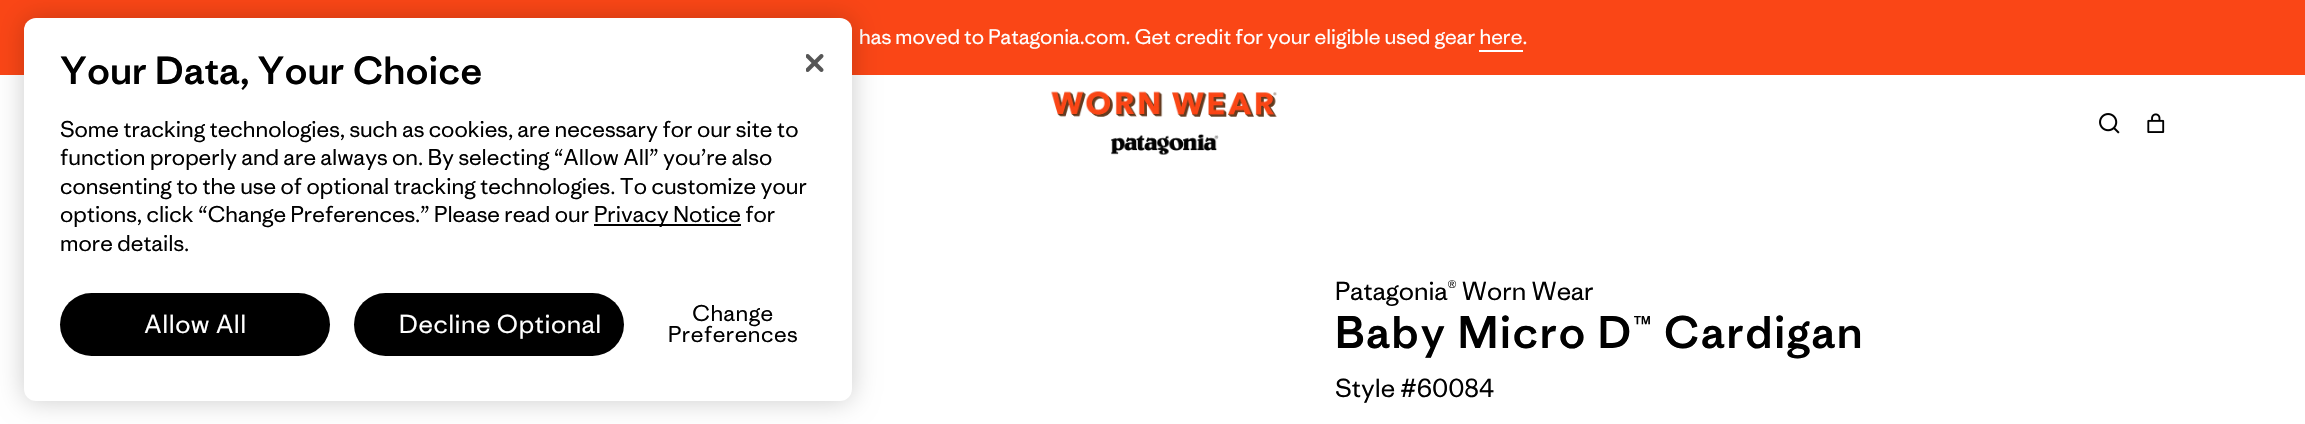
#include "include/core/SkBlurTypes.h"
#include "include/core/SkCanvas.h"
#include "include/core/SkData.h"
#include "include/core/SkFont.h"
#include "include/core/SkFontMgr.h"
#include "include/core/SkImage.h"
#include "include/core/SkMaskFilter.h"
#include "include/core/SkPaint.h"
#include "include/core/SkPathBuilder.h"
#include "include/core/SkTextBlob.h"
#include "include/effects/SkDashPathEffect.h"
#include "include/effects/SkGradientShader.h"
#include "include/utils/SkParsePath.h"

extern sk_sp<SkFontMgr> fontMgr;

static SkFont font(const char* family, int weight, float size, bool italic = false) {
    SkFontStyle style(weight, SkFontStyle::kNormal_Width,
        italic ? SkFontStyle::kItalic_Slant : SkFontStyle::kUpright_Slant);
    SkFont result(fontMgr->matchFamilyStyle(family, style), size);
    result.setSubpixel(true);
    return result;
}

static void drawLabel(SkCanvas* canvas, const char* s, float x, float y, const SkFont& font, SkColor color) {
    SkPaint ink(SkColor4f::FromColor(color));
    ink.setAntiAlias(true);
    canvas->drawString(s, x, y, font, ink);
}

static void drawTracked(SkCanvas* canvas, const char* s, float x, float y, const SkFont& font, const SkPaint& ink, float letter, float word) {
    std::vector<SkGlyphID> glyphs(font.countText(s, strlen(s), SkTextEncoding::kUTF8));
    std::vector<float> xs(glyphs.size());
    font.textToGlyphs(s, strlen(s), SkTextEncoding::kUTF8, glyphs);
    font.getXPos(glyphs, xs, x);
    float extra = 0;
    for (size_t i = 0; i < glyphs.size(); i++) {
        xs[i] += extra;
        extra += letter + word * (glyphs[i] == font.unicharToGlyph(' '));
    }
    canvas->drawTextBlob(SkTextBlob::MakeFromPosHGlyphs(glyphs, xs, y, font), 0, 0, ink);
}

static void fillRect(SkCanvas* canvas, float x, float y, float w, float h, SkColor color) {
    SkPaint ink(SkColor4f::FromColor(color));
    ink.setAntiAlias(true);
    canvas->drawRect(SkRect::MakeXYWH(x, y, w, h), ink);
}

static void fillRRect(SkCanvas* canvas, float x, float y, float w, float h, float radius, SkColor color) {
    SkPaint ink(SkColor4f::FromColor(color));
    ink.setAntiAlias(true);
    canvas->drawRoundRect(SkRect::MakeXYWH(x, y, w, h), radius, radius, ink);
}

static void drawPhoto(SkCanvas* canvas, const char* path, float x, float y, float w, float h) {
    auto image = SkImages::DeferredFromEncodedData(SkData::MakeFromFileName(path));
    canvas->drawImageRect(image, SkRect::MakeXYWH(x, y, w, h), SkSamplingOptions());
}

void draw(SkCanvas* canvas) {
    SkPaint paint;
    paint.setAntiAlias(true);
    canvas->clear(0xFFFFFFFF);
    fillRect(canvas, 0, 0, 2305, 75, 0xFFFA4616);
    SkFont font1 = font("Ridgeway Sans", 400, 19.5f);
    drawLabel(canvas, "has moved to Patagonia.com. Get credit for your eligible used gear here.", 859, 44, font1, 0xFFFFFFFF);
    fillRect(canvas, 1479, 50, 44, 2, 0xFFFFFFFF);
    paint.setColor(0x33000000);
    paint.setMaskFilter(SkMaskFilter::MakeBlur(kNormal_SkBlurStyle, 13.5f));
    canvas->drawRoundRect(SkRect::MakeXYWH(24, 18, 828, 383), 12, 12, paint);
    paint.setMaskFilter(nullptr);
    fillRRect(canvas, 24, 18, 828, 383, 12, 0xFFFFFFFF);
    SkFont font2 = font("Ridgeway Sans", 500, 36);
    drawLabel(canvas, "Your Data, Your Choice", 60, 84, font2, 0xFF000000);
    SkFont font3 = font("Ridgeway Sans", 400, 21);
    drawLabel(canvas, "Some tracking technologies, such as cookies, are necessary for our site to", 60, 137, font3, 0xFF000000);
    drawLabel(canvas, "function properly and are always on. By selecting “Allow All” you’re also", 60, 165, font3, 0xFF000000);
    drawLabel(canvas, "consenting to the use of optional tracking technologies. To customize your", 60, 194, font3, 0xFF000000);
    drawLabel(canvas, "options, click “Change Preferences.” Please read our", 60, 222, font3, 0xFF000000);
    fillRect(canvas, 594, 224, 147, 2, 0xFF000000);
    drawLabel(canvas, "Privacy Notice for", 594, 222, font3, 0xFF000000);
    drawLabel(canvas, "more details.", 60, 251, font3, 0xFF000000);
    drawPhoto(canvas, "assets/img1.png", 806, 54, 18, 18);
    fillRRect(canvas, 60, 293, 270, 63, 31.5f, 0xFF000000);
    SkFont font4 = font("Ridgeway Sans", 400, 24);
    paint.setColor(0xFFFFFFFF);
    drawTracked(canvas, "Allow All", 144, 333, font4, paint, 0.5f, 0);
    fillRRect(canvas, 354, 293, 270, 63, 31.5f, 0xFF000000);
    drawTracked(canvas, "Decline Optional", 399, 333, font4, paint, 0.5f, 0);
    paint.setColor(0xFF000000);
    drawTracked(canvas, "Change", 692, 321, font3, paint, 0.5f, 0);
    drawTracked(canvas, "Preferences", 668, 342, font3, paint, 0.5f, 0);
    drawPhoto(canvas, "assets/img2.png", 1051, 91, 226, 64);
    drawPhoto(canvas, "assets/img3.png", 2099, 113, 21, 21);
    drawPhoto(canvas, "assets/img4.png", 2147, 113, 18, 20);
    drawLabel(canvas, "Patagonia® Worn Wear", 1335, 300, font4, 0xFF000000);
    SkFont font5 = font("Ridgeway Sans", 500, 42);
    drawTracked(canvas, "Baby Micro D™ Cardigan", 1335, 348, font5, paint, 1.5f, 0);
    drawLabel(canvas, "Style #60084", 1335, 397, font4, 0xFF000000);
}
